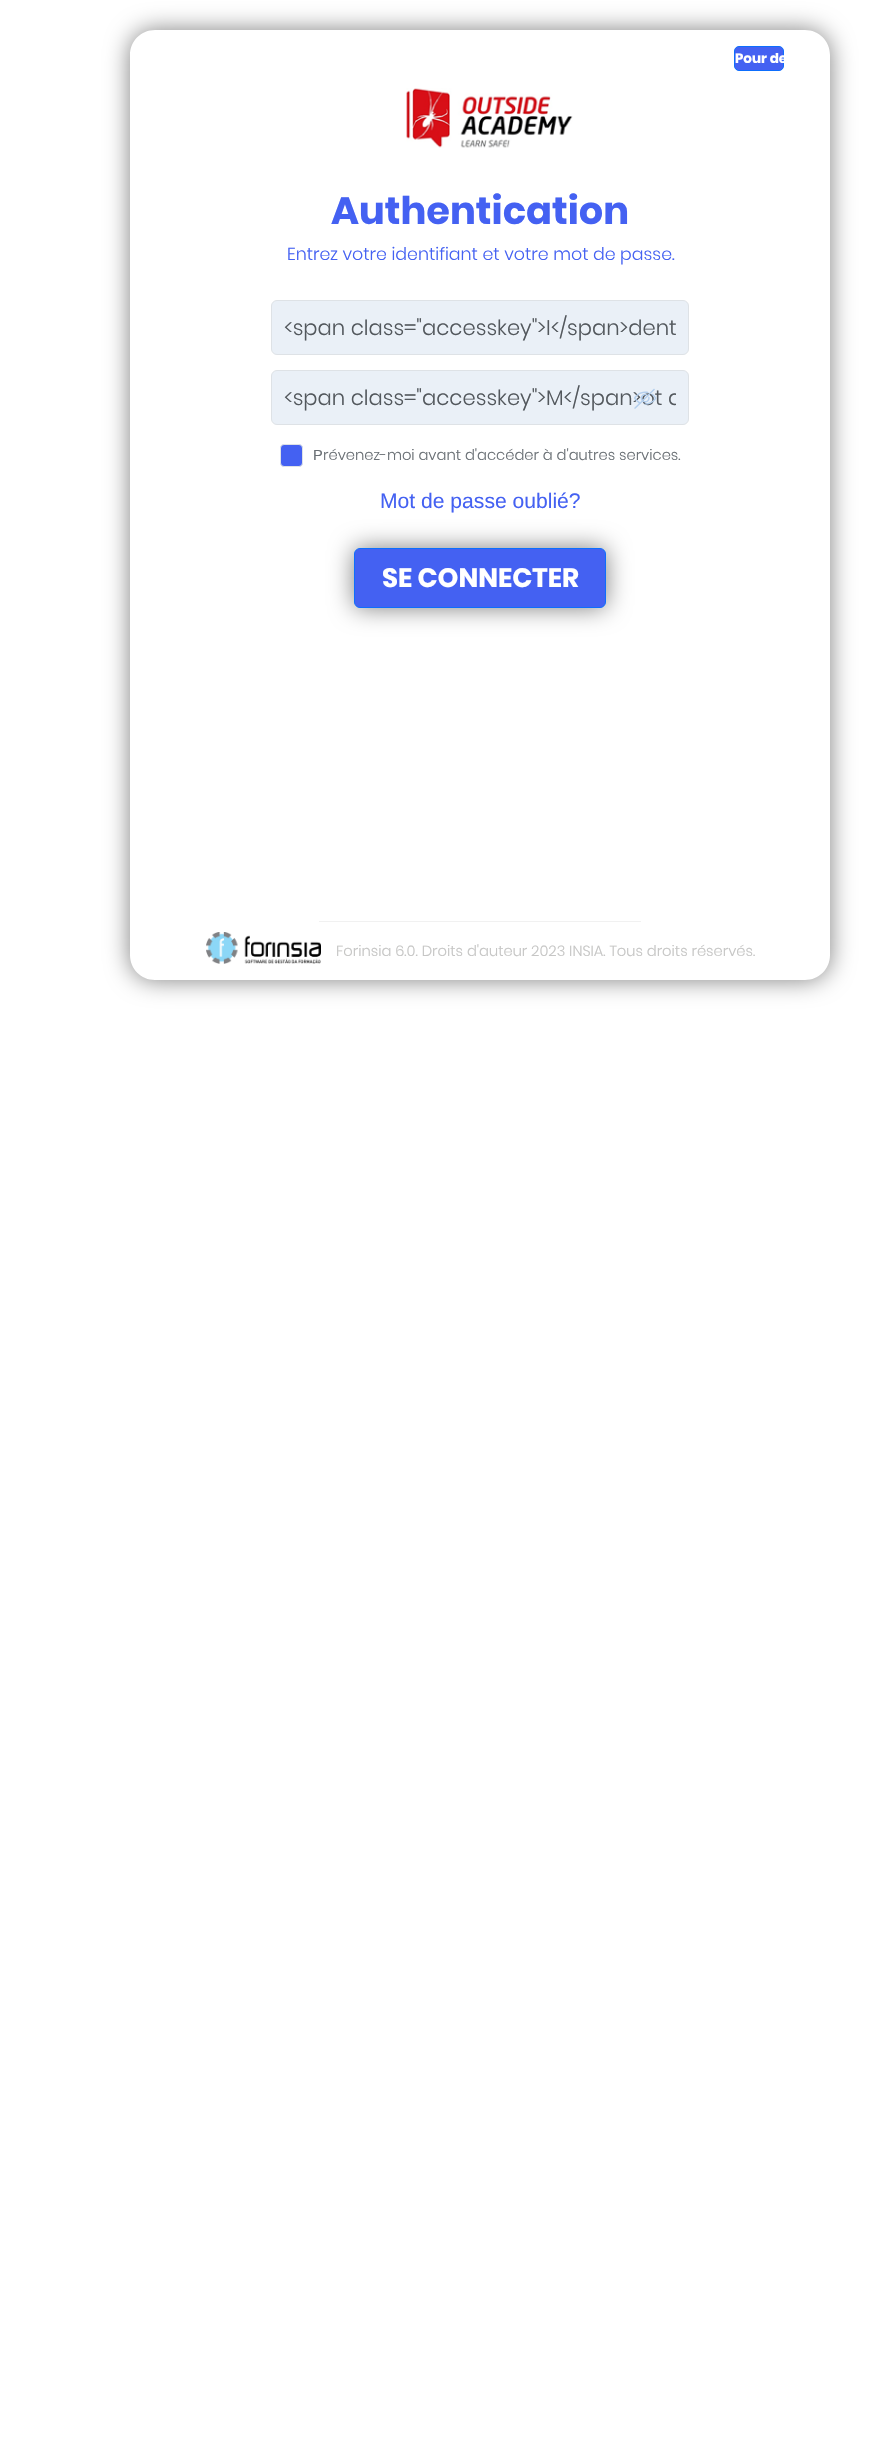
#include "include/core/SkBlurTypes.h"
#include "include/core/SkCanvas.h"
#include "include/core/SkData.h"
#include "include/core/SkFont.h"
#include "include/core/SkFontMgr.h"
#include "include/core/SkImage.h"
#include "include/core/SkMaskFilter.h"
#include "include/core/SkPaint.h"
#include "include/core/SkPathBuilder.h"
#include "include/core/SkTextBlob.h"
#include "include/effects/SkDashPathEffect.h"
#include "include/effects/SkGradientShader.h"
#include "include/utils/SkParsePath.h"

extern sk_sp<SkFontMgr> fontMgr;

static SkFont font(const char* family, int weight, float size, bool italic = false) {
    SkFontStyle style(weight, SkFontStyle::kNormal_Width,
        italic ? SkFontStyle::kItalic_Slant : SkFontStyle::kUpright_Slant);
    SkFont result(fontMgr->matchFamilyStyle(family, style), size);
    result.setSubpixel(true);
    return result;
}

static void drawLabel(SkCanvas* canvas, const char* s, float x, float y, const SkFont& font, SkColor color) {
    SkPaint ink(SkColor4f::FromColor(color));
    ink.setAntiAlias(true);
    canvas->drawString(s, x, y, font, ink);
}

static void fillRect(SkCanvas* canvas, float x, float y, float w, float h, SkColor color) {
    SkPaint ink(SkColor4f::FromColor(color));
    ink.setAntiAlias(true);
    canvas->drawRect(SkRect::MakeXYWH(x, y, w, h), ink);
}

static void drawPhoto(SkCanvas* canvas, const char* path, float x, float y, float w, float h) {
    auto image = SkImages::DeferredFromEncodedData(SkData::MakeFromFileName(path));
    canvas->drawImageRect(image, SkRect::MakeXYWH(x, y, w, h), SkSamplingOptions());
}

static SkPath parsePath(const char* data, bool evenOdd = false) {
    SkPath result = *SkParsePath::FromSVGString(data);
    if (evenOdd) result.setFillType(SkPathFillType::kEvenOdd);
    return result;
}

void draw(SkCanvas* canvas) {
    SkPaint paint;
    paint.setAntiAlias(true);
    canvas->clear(0xFFFFFFFF);
    canvas->save();
    canvas->clipPath(parsePath("M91 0H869V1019H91ZM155 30H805C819 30 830 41 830 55V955C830 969 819 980 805 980H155C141 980 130 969 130 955V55C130 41 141 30 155 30Z", true), true);
    paint.setColor(0x80000000);
    paint.setMaskFilter(SkMaskFilter::MakeBlur(kNormal_SkBlurStyle, 12.5f));
    canvas->drawRoundRect(SkRect::MakeXYWH(130, 30, 700, 950), 25, 25, paint);
    paint.setMaskFilter(nullptr);
    canvas->restore();
    paint.setColor(0xFF4461F2);
    canvas->drawRoundRect(SkRect::MakeXYWH(734.5f, 46.5f, 49, 24), 4.5f, 4.5f, paint);
    paint.setStroke(true);
    paint.setStrokeWidth(1);
    paint.setColor(0xFF0D6EFD);
    canvas->drawRoundRect(SkRect::MakeXYWH(734.5f, 46.5f, 49, 24), 4.5f, 4.5f, paint);
    SkFont font1 = font("Poppins", 700, 13.5f);
    drawLabel(canvas, "Pour de", 735, 63, font1, 0xFFFFFFFF);
    drawPhoto(canvas, "assets/img1.png", 406, 88, 167, 60);
    SkFont font2 = font("Poppins", 700, 38.25f);
    drawLabel(canvas, "Authentication", 331, 224, font2, 0xFF4461F2);
    SkFont font3 = font("Poppins", 300, 17.4f);
    drawLabel(canvas, "Entrez votre identifiant et votre mot de passe.", 287, 260, font3, 0xFF4461F2);
    paint.setStroke(false);
    paint.setColor(0xFFEAF0F7);
    canvas->drawRoundRect(SkRect::MakeXYWH(271.5f, 300.5f, 417, 54), 5.5f, 5.5f, paint);
    paint.setStroke(true);
    paint.setColor(0xFFDEE2E6);
    canvas->drawRoundRect(SkRect::MakeXYWH(271.5f, 300.5f, 417, 54), 5.5f, 5.5f, paint);
    canvas->save();
    canvas->clipRect(SkRect::MakeXYWH(284, 312, 392, 31));
    SkFont font4 = font("Poppins", 300, 21.1f);
    drawLabel(canvas, "<span class=\"accesskey\">I</span>dent", 284, 335, font4, 0xFF53585D);
    canvas->restore();
    paint.setStroke(false);
    paint.setColor(0xFFEAF0F7);
    canvas->drawRoundRect(SkRect::MakeXYWH(271.5f, 370.5f, 417, 54), 5.5f, 5.5f, paint);
    paint.setStroke(true);
    paint.setColor(0xFFDEE2E6);
    canvas->drawRoundRect(SkRect::MakeXYWH(271.5f, 370.5f, 417, 54), 5.5f, 5.5f, paint);
    canvas->save();
    canvas->clipRect(SkRect::MakeXYWH(284, 382, 392, 31));
    drawLabel(canvas, "<span class=\"accesskey\">M</span>ot d", 284, 405, font4, 0xFF53585D);
    canvas->restore();
    drawPhoto(canvas, "assets/img2.png", 634, 388, 23, 21);
    paint.setStroke(false);
    paint.setColor(0xFF4461F2);
    canvas->drawRoundRect(SkRect::MakeXYWH(280.5f, 444.5f, 22, 22), 3.5f, 3.5f, paint);
    paint.setStroke(true);
    paint.setColor(0xFFDEE2E6);
    canvas->drawRoundRect(SkRect::MakeXYWH(280.5f, 444.5f, 22, 22), 3.5f, 3.5f, paint);
    SkFont font5 = font("Liberation Sans", 400, 14.7f);
    drawLabel(canvas, "P", 313, 460, font5, 0xFF6A7075);
    SkFont font6 = font("Poppins", 300, 14.7f);
    drawLabel(canvas, "révenez-moi avant d'accéder à d'autres services.", 323, 460, font6, 0xFF6A7075);
    SkFont font7 = font("Liberation Sans", 400, 21.1f);
    drawLabel(canvas, "Mot de passe oublié?", 380, 508, font7, 0xFF4461F2);
    paint.setStroke(false);
    paint.setColor(0x80000000);
    paint.setMaskFilter(SkMaskFilter::MakeBlur(kNormal_SkBlurStyle, 12.5f));
    canvas->drawRoundRect(SkRect::MakeXYWH(354, 548, 252, 60), 6, 6, paint);
    paint.setMaskFilter(nullptr);
    paint.setColor(0xFF4461F2);
    canvas->drawRoundRect(SkRect::MakeXYWH(354.5f, 548.5f, 251, 59), 5.5f, 5.5f, paint);
    paint.setStroke(true);
    paint.setColor(0xFF0D6EFD);
    canvas->drawRoundRect(SkRect::MakeXYWH(354.5f, 548.5f, 251, 59), 5.5f, 5.5f, paint);
    SkFont font8 = font("Poppins", 700, 26.5f);
    drawLabel(canvas, "SE CONNECTER", 382, 587, font8, 0xFFFFFFFF);
    fillRect(canvas, 319, 921, 322, 1, 0xFFF1F1F1);
    drawPhoto(canvas, "assets/img3.png", 206, 932, 115, 32);
    drawLabel(canvas, "Forinsia 6.0. Droits d'auteur 2023 INSIA. Tous droits réservés.", 336, 956, font6, 0xFFC6C6C5);
}
